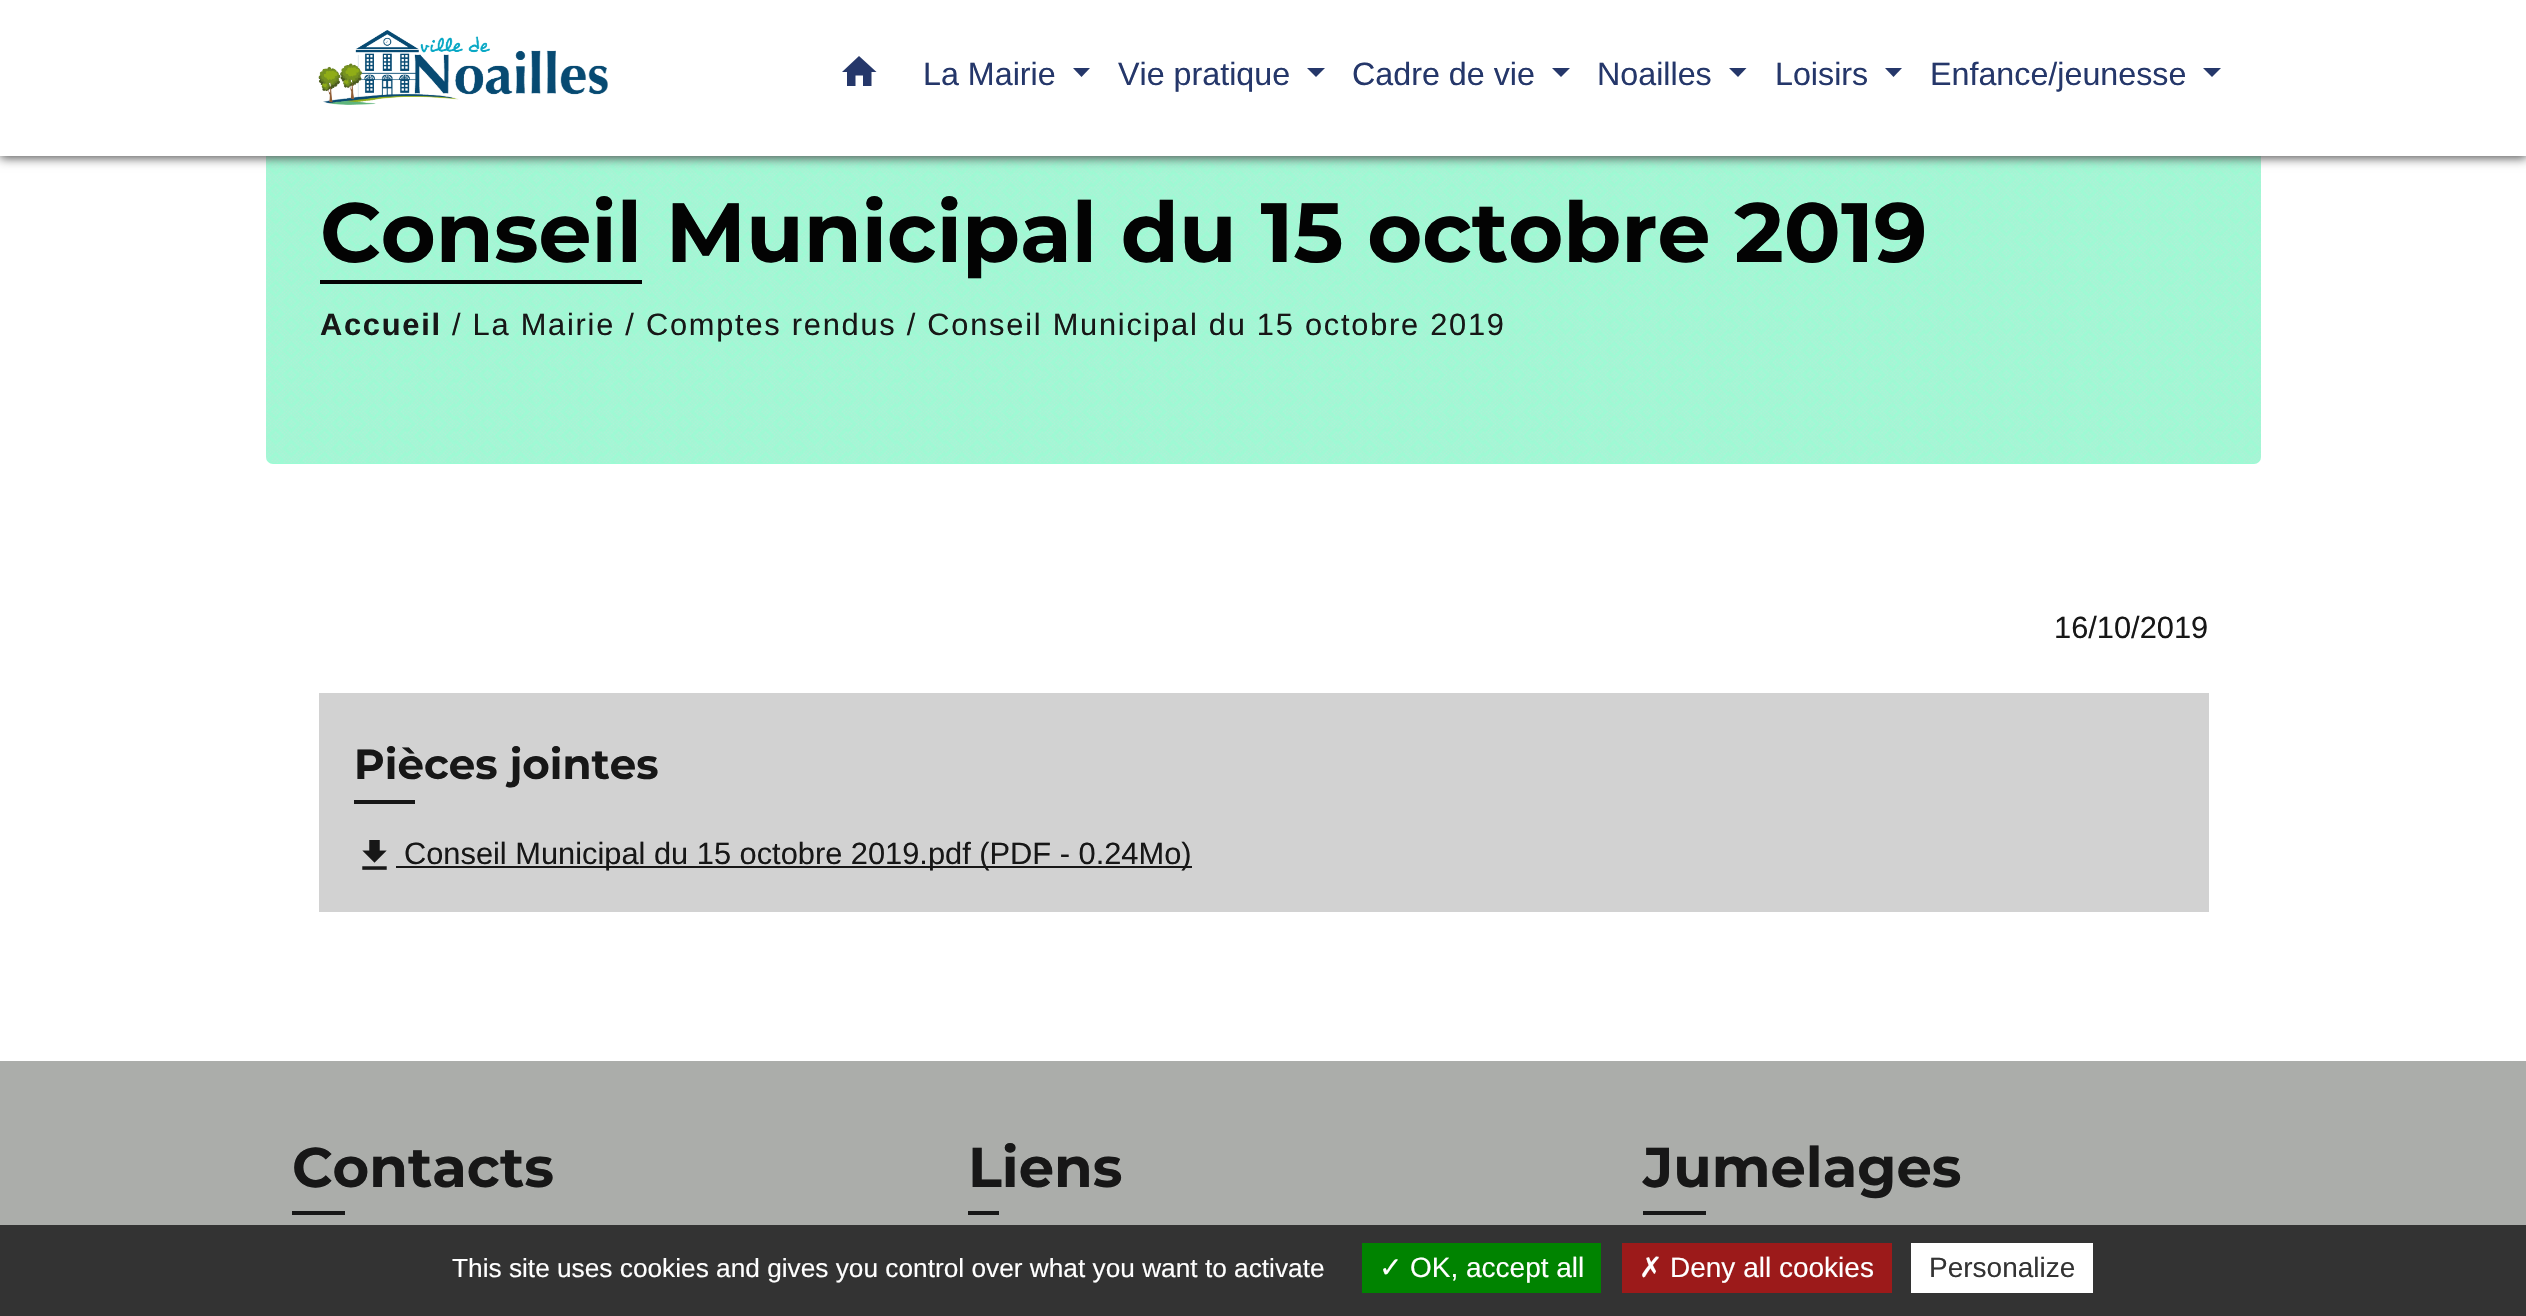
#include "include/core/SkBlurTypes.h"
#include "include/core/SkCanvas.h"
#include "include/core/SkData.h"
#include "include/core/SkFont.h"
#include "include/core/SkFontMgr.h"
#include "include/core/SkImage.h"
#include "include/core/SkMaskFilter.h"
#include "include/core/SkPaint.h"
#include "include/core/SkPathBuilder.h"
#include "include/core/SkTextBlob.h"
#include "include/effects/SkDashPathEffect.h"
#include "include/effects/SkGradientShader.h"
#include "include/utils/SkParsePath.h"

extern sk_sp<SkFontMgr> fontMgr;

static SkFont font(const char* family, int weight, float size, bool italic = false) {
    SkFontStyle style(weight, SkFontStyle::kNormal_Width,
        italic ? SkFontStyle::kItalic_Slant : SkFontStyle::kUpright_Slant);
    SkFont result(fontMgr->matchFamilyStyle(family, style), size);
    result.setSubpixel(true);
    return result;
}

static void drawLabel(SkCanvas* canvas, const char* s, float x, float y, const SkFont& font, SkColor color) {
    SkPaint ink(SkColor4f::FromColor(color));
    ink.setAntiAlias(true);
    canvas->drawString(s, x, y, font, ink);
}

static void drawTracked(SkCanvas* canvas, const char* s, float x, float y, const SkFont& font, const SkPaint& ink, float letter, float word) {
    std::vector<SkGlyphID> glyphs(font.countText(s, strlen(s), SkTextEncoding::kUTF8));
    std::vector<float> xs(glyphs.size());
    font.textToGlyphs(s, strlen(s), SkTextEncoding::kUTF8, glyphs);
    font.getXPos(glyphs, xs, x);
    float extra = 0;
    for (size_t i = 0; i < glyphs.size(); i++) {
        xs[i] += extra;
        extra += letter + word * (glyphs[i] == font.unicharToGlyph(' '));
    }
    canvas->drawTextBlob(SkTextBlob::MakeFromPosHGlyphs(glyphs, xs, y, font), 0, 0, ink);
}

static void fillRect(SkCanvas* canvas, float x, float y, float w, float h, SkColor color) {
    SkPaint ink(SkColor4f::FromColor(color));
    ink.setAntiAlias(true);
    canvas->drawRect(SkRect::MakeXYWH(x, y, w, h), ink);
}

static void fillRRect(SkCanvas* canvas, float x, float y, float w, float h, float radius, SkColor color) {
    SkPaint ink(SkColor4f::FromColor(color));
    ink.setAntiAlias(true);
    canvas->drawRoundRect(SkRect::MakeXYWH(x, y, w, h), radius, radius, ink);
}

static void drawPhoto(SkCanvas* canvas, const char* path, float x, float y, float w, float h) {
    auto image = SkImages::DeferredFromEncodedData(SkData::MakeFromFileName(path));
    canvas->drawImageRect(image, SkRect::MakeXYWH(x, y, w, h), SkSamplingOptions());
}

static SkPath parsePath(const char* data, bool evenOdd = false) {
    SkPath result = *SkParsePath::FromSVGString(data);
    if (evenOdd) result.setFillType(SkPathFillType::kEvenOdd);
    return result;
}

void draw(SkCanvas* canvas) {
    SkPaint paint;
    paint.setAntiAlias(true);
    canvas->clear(0xFFFFFFFF);
    fillRRect(canvas, 266, 68, 1995, 396, 7, 0xFF9BFCD4);
    drawPhoto(canvas, "assets/img2.png", 266, 156, 1995, 307);
    paint.setColor(0xFF535353);
    paint.setMaskFilter(SkMaskFilter::MakeBlur(kNormal_SkBlurStyle, 5));
    canvas->drawRect(SkRect::MakeXYWH(0, 2, 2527, 156), paint);
    paint.setMaskFilter(nullptr);
    fillRect(canvas, 0, 0, 2526, 156, 0xFFFFFFFF);
    drawPhoto(canvas, "assets/img1.png", 318, 30, 290, 75);
    paint.setColor(0xFF25376A);
    canvas->drawPath(parsePath("M855.5 86H847V72H842L859 56L876.5 72H871.5V86H863V75.5H855.5Z"), paint);
    SkFont font1 = font("Liberation Sans", 400, 32.25f);
    drawLabel(canvas, "La Mairie", 923, 85, font1, 0xFF25376A);
    canvas->drawPath(parsePath("M1073 68H1090L1081.5 77Z"), paint);
    drawLabel(canvas, "Vie pratique", 1118, 85, font1, 0xFF25376A);
    canvas->drawPath(parsePath("M1307 68H1325L1316 77Z"), paint);
    drawLabel(canvas, "Cadre de vie", 1352, 85, font1, 0xFF25376A);
    canvas->drawPath(parsePath("M1552 68H1570L1561 77Z"), paint);
    drawLabel(canvas, "Noailles", 1597, 85, font1, 0xFF25376A);
    canvas->drawPath(parsePath("M1729 68H1746.5L1738 77Z"), paint);
    drawLabel(canvas, "Loisirs", 1775, 85, font1, 0xFF25376A);
    canvas->drawPath(parsePath("M1885 68H1902L1893.5 77Z"), paint);
    drawLabel(canvas, "Enfance/jeunesse", 1930, 85, font1, 0xFF25376A);
    canvas->drawPath(parsePath("M2203 68H2221L2212 77Z"), paint);
    SkFont font2 = font("Montserrat", 700, 84);
    drawLabel(canvas, "Conseil Municipal du 15 octobre 2019", 320, 262, font2, 0xFF030303);
    fillRect(canvas, 320, 280, 322, 4, 0xFF030303);
    SkFont font3 = font("Liberation Sans", 700, 30.8f);
    paint.setColor(0xFF171717);
    drawTracked(canvas, "Accueil", 320, 335, font3, paint, 1.75f, 0);
    SkFont font4 = font("Liberation Sans", 400, 30.8f);
    drawTracked(canvas, "/ La Mairie / Comptes rendus / Conseil Municipal du 15 octobre 2019", 452, 335, font4, paint, 1.75f, 0);
    drawLabel(canvas, "16/10/2019", 2054, 638, font4, 0xFF171717);
    fillRect(canvas, 319, 693, 1890, 219, 0xFFD2D2D2);
    SkFont font5 = font("Montserrat", 700, 42);
    drawLabel(canvas, "Pièces jointes", 354, 779, font5, 0xFF171717);
    fillRect(canvas, 354, 800, 61, 4, 0xFF171717);
    drawPhoto(canvas, "assets/img3.png", 362, 840, 25, 30);
    fillRect(canvas, 396, 866, 796, 2, 0xFF171717);
    drawLabel(canvas, "Conseil Municipal du 15 octobre 2019.pdf (PDF - 0.24Mo)", 404, 864, font4, 0xFF171717);
    fillRect(canvas, 0, 1061, 2526, 164, 0xFFABADAA);
    SkFont font6 = font("Montserrat", 700, 56);
    drawLabel(canvas, "Contacts", 292, 1187, font6, 0xFF171717);
    fillRect(canvas, 292, 1211, 53, 4, 0xFF171717);
    drawLabel(canvas, "Liens", 968, 1187, font6, 0xFF171717);
    fillRect(canvas, 968, 1211, 31, 4, 0xFF171717);
    drawLabel(canvas, "Jumelages", 1643, 1187, font6, 0xFF171717);
    fillRect(canvas, 1643, 1211, 63, 4, 0xFF171717);
    fillRect(canvas, 0, 1225, 2526, 91, 0xFF333333);
    SkFont font7 = font("Liberation Sans", 400, 26.25f);
    drawLabel(canvas, "This site uses cookies and gives you control over what you want to activate", 452, 1277, font7, 0xFFFFFFFF);
    fillRect(canvas, 1362, 1243, 239, 50, 0xFF008300);
    SkFont font8 = font("DejaVu Sans", 400, 28);
    drawLabel(canvas, "✓", 1379, 1277, font8, 0xFFFFFFFF);
    SkFont font9 = font("Liberation Sans", 400, 28);
    drawLabel(canvas, "OK, accept all", 1410, 1277, font9, 0xFFFFFFFF);
    fillRect(canvas, 1622, 1243, 270, 50, 0xFF9C1A1A);
    drawLabel(canvas, "✗", 1639, 1277, font8, 0xFFFFFFFF);
    drawLabel(canvas, "Deny all cookies", 1670, 1277, font9, 0xFFFFFFFF);
    fillRect(canvas, 1911, 1243, 182, 50, 0xFFFFFFFF);
    drawLabel(canvas, "Personalize", 1929, 1277, font9, 0xFF333333);
}
